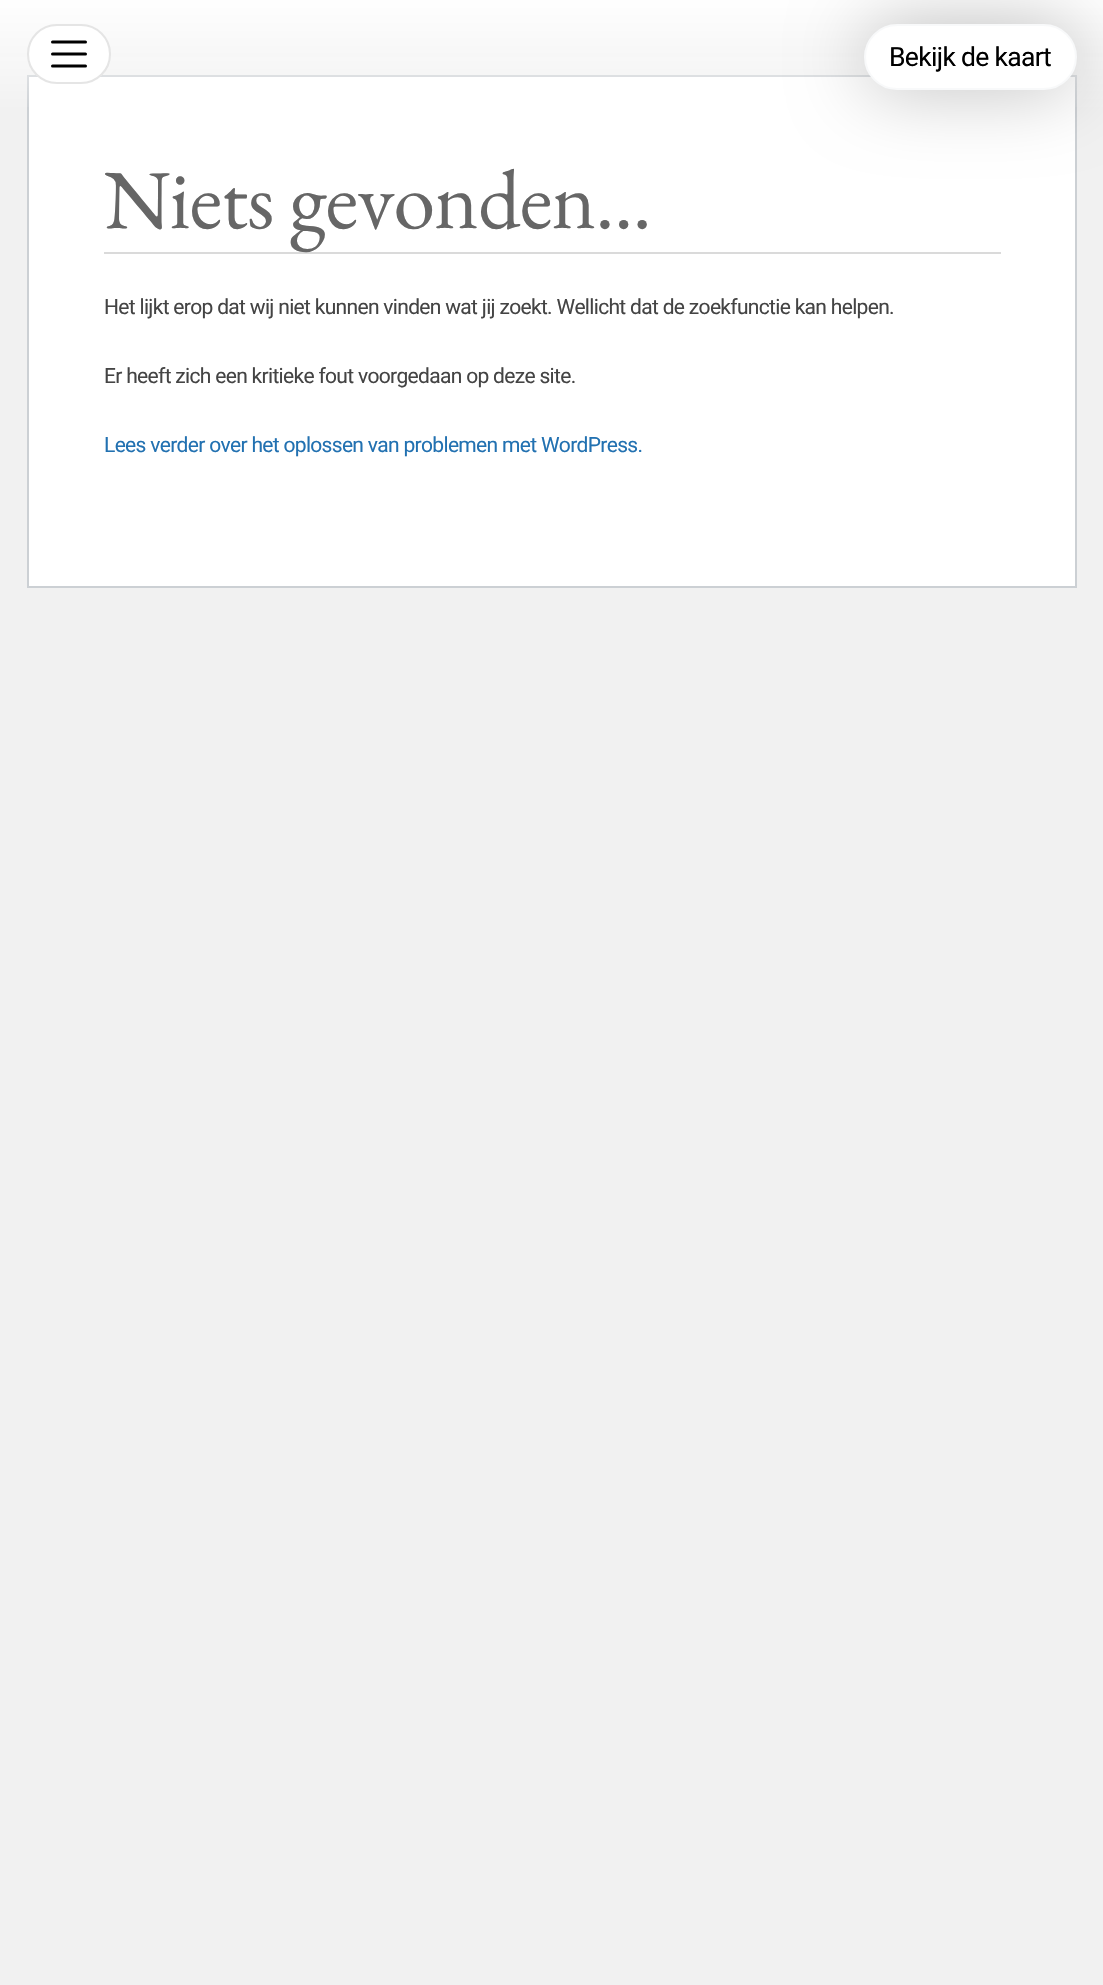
#include "include/core/SkBlurTypes.h"
#include "include/core/SkCanvas.h"
#include "include/core/SkData.h"
#include "include/core/SkFont.h"
#include "include/core/SkFontMgr.h"
#include "include/core/SkImage.h"
#include "include/core/SkMaskFilter.h"
#include "include/core/SkPaint.h"
#include "include/core/SkPathBuilder.h"
#include "include/core/SkTextBlob.h"
#include "include/effects/SkDashPathEffect.h"
#include "include/effects/SkGradientShader.h"
#include "include/utils/SkParsePath.h"

extern sk_sp<SkFontMgr> fontMgr;

static SkFont font(const char* family, int weight, float size, bool italic = false) {
    SkFontStyle style(weight, SkFontStyle::kNormal_Width,
        italic ? SkFontStyle::kItalic_Slant : SkFontStyle::kUpright_Slant);
    SkFont result(fontMgr->matchFamilyStyle(family, style), size);
    result.setSubpixel(true);
    return result;
}

static void drawTracked(SkCanvas* canvas, const char* s, float x, float y, const SkFont& font, const SkPaint& ink, float letter, float word) {
    std::vector<SkGlyphID> glyphs(font.countText(s, strlen(s), SkTextEncoding::kUTF8));
    std::vector<float> xs(glyphs.size());
    font.textToGlyphs(s, strlen(s), SkTextEncoding::kUTF8, glyphs);
    font.getXPos(glyphs, xs, x);
    float extra = 0;
    for (size_t i = 0; i < glyphs.size(); i++) {
        xs[i] += extra;
        extra += letter + word * (glyphs[i] == font.unicharToGlyph(' '));
    }
    canvas->drawTextBlob(SkTextBlob::MakeFromPosHGlyphs(glyphs, xs, y, font), 0, 0, ink);
}

static void fillRect(SkCanvas* canvas, float x, float y, float w, float h, SkColor color) {
    SkPaint ink(SkColor4f::FromColor(color));
    ink.setAntiAlias(true);
    canvas->drawRect(SkRect::MakeXYWH(x, y, w, h), ink);
}

static void fillRRect(SkCanvas* canvas, float x, float y, float w, float h, float radius, SkColor color) {
    SkPaint ink(SkColor4f::FromColor(color));
    ink.setAntiAlias(true);
    canvas->drawRoundRect(SkRect::MakeXYWH(x, y, w, h), radius, radius, ink);
}

static SkPath parsePath(const char* data, bool evenOdd = false) {
    SkPath result = *SkParsePath::FromSVGString(data);
    if (evenOdd) result.setFillType(SkPathFillType::kEvenOdd);
    return result;
}

void draw(SkCanvas* canvas) {
    SkPaint paint;
    paint.setAntiAlias(true);
    canvas->clear(0xFFF1F1F1);
    paint.setColor(0xFFFFFFFF);
    canvas->drawRect(SkRect::MakeXYWH(28, 76, 1048, 511), paint);
    paint.setStroke(true);
    paint.setStrokeWidth(2);
    paint.setColor(0xFFCCD0D4);
    canvas->drawRect(SkRect::MakeXYWH(28, 76, 1048, 511), paint);
    paint.setStroke(false);
    {
        const SkColor colors[] = {0xFFFEFEFE, 0x00FEFEFE};
        const float stops[] = {0, 1};
        const SkPoint ends[] = {{552, 0}, {552, 114}};
        paint.setShader(SkGradientShader::MakeLinear(ends, colors, stops, 2, SkTileMode::kClamp));
        paint.setAlpha(255);
    }
    canvas->drawRect(SkRect::MakeXYWH(0, 0, 1103, 107), paint);
    fillRRect(canvas, 27, 24, 84, 60, 30, 0xFFFFFFFF);
    paint.setStroke(true);
    paint.setShader(nullptr);
    paint.setColor(0x1A000000);
    canvas->drawRoundRect(SkRect::MakeXYWH(28, 25, 82, 58), 29, 29, paint);
    paint.setStrokeWidth(3);
    paint.setStrokeCap(SkPaint::kRound_Cap);
    paint.setColor(0xFF000000);
    canvas->drawPath(parsePath("M52.5 42H85.5M52.5 54H85.5M52.5 66H85.5"), paint);
    paint.setStroke(false);
    paint.setColor(0x40000000);
    paint.setMaskFilter(SkMaskFilter::MakeBlur(kNormal_SkBlurStyle, 37.5f));
    canvas->drawRoundRect(SkRect::MakeXYWH(864, 24, 213, 66), 33, 33, paint);
    paint.setMaskFilter(nullptr);
    paint.setColor(0xFFFFFFFF);
    canvas->drawRoundRect(SkRect::MakeXYWH(865, 25, 211, 64), 32, 32, paint);
    paint.setStroke(true);
    paint.setStrokeWidth(2);
    paint.setStrokeCap(SkPaint::kButt_Cap);
    paint.setColor(0xFFF8F9FA);
    canvas->drawRoundRect(SkRect::MakeXYWH(865, 25, 211, 64), 32, 32, paint);
    SkFont font1 = font("Roboto", 400, 26.5f);
    paint.setStroke(false);
    paint.setColor(0xFF000000);
    drawTracked(canvas, "Bekijk de kaart", 889, 66, font1, paint, -0.68f, 0);
    fillRect(canvas, 104, 252, 897, 2, 0xFFDADADA);
    SkFont font2 = font("EB Garamond", 400, 84);
    paint.setColor(0xFF666666);
    drawTracked(canvas, "Niets gevonden...", 104, 228, font2, paint, -0.75f, 0);
    SkFont font3 = font("Roboto", 400, 21);
    paint.setColor(0xFF444444);
    drawTracked(canvas, "Het lijkt erop dat wij niet kunnen vinden wat jij zoekt. Wellicht dat de zoekfunctie kan helpen.", 104, 314, font3, paint, -0.68f, 0);
    drawTracked(canvas, "Er heeft zich een kritieke fout voorgedaan op deze site.", 104, 383, font3, paint, -0.68f, 0);
    paint.setColor(0xFF2271B1);
    drawTracked(canvas, "Lees verder over het oplossen van problemen met WordPress.", 104, 452, font3, paint, -0.68f, 0);
}
